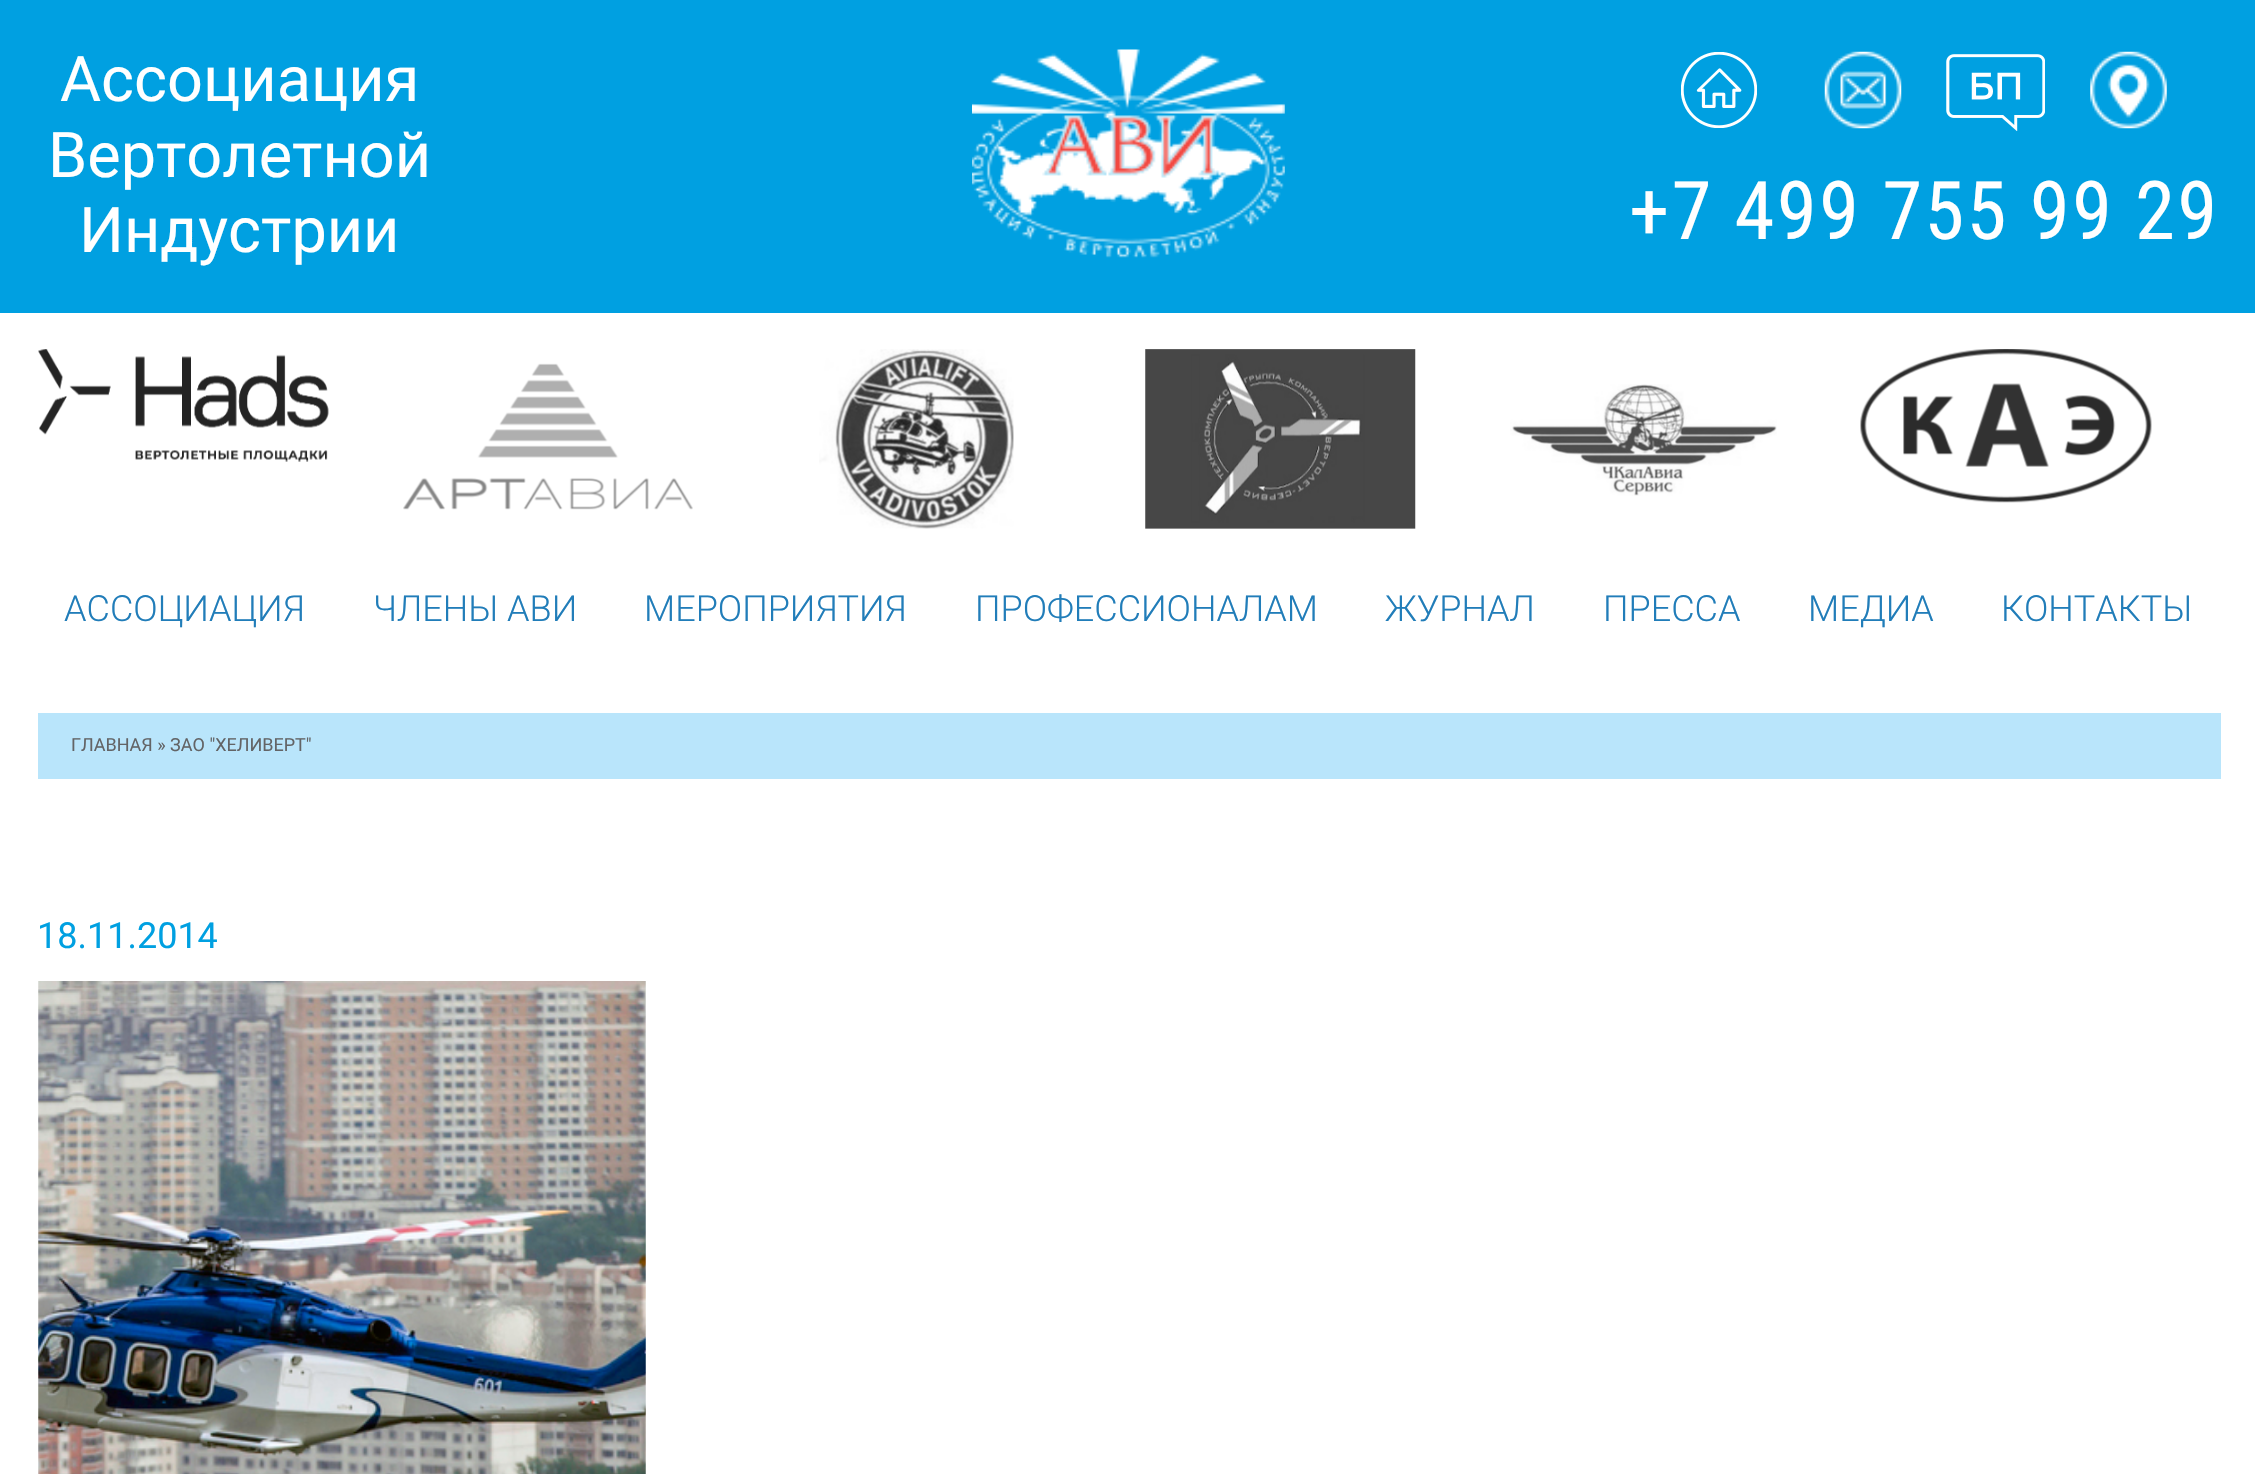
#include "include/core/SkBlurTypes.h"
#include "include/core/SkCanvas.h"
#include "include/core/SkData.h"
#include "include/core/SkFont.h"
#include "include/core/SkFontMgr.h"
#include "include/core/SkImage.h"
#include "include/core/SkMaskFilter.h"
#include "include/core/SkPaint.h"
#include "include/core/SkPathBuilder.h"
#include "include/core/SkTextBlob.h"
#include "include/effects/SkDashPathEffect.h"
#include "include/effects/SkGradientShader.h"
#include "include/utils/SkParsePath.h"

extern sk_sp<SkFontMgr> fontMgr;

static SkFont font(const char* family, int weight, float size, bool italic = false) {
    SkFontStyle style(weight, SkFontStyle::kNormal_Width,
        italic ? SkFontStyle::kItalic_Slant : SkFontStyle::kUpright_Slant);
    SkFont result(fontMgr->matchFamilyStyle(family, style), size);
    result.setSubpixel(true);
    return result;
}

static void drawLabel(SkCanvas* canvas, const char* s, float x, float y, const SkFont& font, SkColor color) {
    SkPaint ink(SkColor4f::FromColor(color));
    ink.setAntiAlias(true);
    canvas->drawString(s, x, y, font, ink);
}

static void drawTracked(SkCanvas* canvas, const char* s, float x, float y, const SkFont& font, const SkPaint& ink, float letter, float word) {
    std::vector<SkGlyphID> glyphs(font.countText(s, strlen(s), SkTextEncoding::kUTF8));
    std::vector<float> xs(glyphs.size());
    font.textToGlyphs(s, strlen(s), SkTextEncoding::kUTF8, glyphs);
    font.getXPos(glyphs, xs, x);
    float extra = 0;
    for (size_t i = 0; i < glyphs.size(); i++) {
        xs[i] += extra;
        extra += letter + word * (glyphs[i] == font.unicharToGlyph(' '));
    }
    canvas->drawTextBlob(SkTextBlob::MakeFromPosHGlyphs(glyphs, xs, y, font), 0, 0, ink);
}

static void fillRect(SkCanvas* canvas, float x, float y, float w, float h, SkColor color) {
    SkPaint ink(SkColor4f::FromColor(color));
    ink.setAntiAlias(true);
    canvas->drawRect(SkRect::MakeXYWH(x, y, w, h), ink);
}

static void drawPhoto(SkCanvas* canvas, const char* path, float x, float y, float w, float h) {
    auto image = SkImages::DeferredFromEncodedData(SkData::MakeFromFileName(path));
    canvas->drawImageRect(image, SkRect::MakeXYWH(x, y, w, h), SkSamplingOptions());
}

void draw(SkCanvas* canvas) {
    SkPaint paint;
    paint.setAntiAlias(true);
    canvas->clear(0xFFFFFFFF);
    fillRect(canvas, 0, 0, 2255, 313, 0xFF00A0E1);
    SkFont font1 = font("Roboto", 400, 63);
    drawLabel(canvas, "Ассоциация", 60, 101, font1, 0xFFFFFFFF);
    drawLabel(canvas, "Вертолетной", 48, 177, font1, 0xFFFFFFFF);
    drawLabel(canvas, "Индустрии", 79, 252, font1, 0xFFFFFFFF);
    drawPhoto(canvas, "assets/img1.png", 972, 49, 313, 209);
    drawPhoto(canvas, "assets/img2.png", 1681, 52, 76, 76);
    drawPhoto(canvas, "assets/img3.png", 1824, 51, 78, 78);
    drawPhoto(canvas, "assets/img4.png", 1946, 54, 99, 77);
    drawPhoto(canvas, "assets/img5.png", 2090, 51, 77, 78);
    SkFont font2 = font("Roboto Condensed", 400, 81);
    paint.setColor(0xFFFFFFFF);
    drawTracked(canvas, "+7 499 755 99 29", 1629, 239, font2, paint, 2.25f, 0);
    drawPhoto(canvas, "assets/img6.png", 38, 349, 291, 113);
    drawPhoto(canvas, "assets/img7.png", 403, 363, 290, 147);
    drawPhoto(canvas, "assets/img8.png", 819, 349, 195, 180);
    drawPhoto(canvas, "assets/img9.png", 1145, 349, 271, 180);
    drawPhoto(canvas, "assets/img10.png", 1510, 384, 267, 112);
    drawPhoto(canvas, "assets/img11.png", 1860, 349, 292, 154);
    SkFont font3 = font("Roboto", 300, 36);
    drawLabel(canvas, "АССОЦИАЦИЯ", 64, 621, font3, 0xFF217DB9);
    drawLabel(canvas, "ЧЛЕНЫ АВИ", 373, 621, font3, 0xFF217DB9);
    drawLabel(canvas, "МЕРОПРИЯТИЯ", 644, 621, font3, 0xFF217DB9);
    drawLabel(canvas, "ПРОФЕССИОНАЛАМ", 975, 621, font3, 0xFF217DB9);
    drawLabel(canvas, "ЖУРНАЛ", 1385, 621, font3, 0xFF217DB9);
    drawLabel(canvas, "ПРЕССА", 1603, 621, font3, 0xFF217DB9);
    drawLabel(canvas, "МЕДИА", 1808, 621, font3, 0xFF217DB9);
    drawLabel(canvas, "КОНТАКТЫ", 2001, 621, font3, 0xFF217DB9);
    fillRect(canvas, 38, 713, 2183, 66, 0xFFB9E5FB);
    SkFont font4 = font("Roboto", 400, 18);
    drawLabel(canvas, "ГЛАВНАЯ » ЗАО \"ХЕЛИВЕРТ\"", 71, 751, font4, 0xFF636466);
    SkFont font5 = font("Roboto", 400, 36);
    drawLabel(canvas, "18.11.2014", 37, 948, font5, 0xFF00A0E1);
    drawPhoto(canvas, "assets/img12.png", 38, 981, 608, 493);
}
